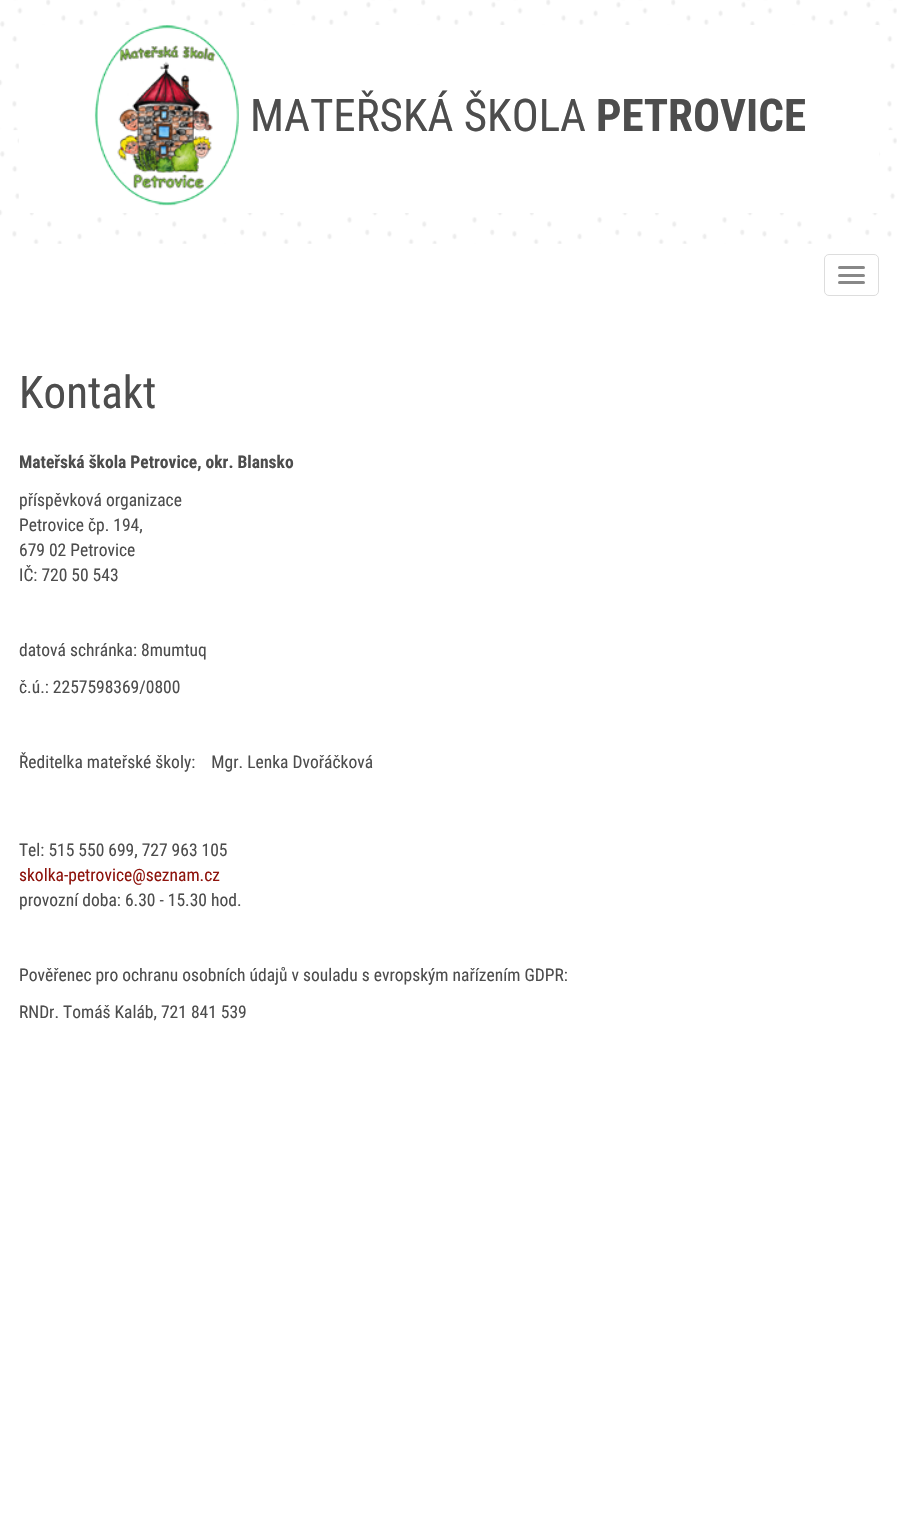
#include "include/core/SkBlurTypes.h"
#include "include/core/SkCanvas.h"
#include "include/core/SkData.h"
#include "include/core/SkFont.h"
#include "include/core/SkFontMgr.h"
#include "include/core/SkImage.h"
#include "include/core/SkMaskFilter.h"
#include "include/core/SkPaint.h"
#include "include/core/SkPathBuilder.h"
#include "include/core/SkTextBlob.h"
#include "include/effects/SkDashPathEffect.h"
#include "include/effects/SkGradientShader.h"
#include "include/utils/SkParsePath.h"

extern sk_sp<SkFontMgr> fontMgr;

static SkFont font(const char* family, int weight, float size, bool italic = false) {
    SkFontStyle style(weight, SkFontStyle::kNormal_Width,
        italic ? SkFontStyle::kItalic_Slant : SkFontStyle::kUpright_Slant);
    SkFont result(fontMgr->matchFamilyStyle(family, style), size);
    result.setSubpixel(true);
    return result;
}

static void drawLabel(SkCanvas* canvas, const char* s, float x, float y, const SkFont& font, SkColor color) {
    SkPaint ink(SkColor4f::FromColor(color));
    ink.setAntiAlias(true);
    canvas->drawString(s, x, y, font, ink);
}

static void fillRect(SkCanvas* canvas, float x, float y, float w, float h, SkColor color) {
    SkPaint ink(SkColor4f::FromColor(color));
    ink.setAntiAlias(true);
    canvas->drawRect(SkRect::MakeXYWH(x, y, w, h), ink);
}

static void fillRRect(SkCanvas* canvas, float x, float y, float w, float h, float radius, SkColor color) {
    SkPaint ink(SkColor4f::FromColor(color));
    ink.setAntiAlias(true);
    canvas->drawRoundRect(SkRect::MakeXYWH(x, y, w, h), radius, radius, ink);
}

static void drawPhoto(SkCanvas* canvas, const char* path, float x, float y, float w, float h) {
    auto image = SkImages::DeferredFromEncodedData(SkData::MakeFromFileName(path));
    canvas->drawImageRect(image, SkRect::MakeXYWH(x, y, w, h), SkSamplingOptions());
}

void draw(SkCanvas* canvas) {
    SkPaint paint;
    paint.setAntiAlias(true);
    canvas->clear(0xFFFFFFFF);
    drawPhoto(canvas, "assets/img1.png", 0, 0, 897, 244);
    fillRect(canvas, 19, 25, 860, 188, 0xFFFFFFFF);
    drawPhoto(canvas, "assets/img2.png", 94, 25, 145, 181);
    SkFont font1 = font("Roboto Condensed", 400, 45);
    drawLabel(canvas, "MATEŘSKÁ ŠKOLA", 250, 131, font1, 0xFF4D4D4D);
    SkFont font2 = font("Roboto Condensed", 700, 45);
    drawLabel(canvas, "PETROVICE", 596, 131, font2, 0xFF4D4D4D);
    paint.setStroke(true);
    paint.setStrokeWidth(1);
    paint.setColor(0xFFDDDDDD);
    canvas->drawRoundRect(SkRect::MakeXYWH(824.5f, 254.5f, 54, 41), 4.5f, 4.5f, paint);
    fillRRect(canvas, 838, 266, 27, 3, 1.5f, 0xFF888888);
    fillRRect(canvas, 838, 274, 27, 3, 1.5f, 0xFF888888);
    fillRRect(canvas, 838, 281, 27, 3, 1.5f, 0xFF888888);
    drawLabel(canvas, "Kontakt", 19, 408, font1, 0xFF4D4D4D);
    SkFont font3 = font("Roboto Condensed", 700, 17.5f);
    drawLabel(canvas, "Mateřská škola Petrovice, okr. Blansko", 19, 468, font3, 0xFF4D4D4D);
    SkFont font4 = font("Roboto Condensed", 400, 17.5f);
    drawLabel(canvas, "příspěvková organizace", 19, 506, font4, 0xFF4D4D4D);
    drawLabel(canvas, "Petrovice čp. 194,", 19, 531, font4, 0xFF4D4D4D);
    drawLabel(canvas, "679 02 Petrovice", 19, 556, font4, 0xFF4D4D4D);
    drawLabel(canvas, "IČ: 720 50 543", 19, 581, font4, 0xFF4D4D4D);
    drawLabel(canvas, "datová schránka: 8mumtuq", 19, 656, font4, 0xFF4D4D4D);
    drawLabel(canvas, "č.ú.: 2257598369/0800", 19, 693, font4, 0xFF4D4D4D);
    drawLabel(canvas, "Ředitelka mateřské školy:    Mgr. Lenka Dvořáčková", 19, 768, font4, 0xFF4D4D4D);
    drawLabel(canvas, "Tel: 515 550 699, 727 963 105", 19, 856, font4, 0xFF4D4D4D);
    drawLabel(canvas, "skolka-petrovice@seznam.cz", 19, 881, font4, 0xFF8E140D);
    drawLabel(canvas, "provozní doba: 6.30 - 15.30 hod.", 19, 906, font4, 0xFF4D4D4D);
    drawLabel(canvas, "Pověřenec pro ochranu osobních údajů v souladu s evropským nařízením GDPR:", 19, 981, font4, 0xFF4D4D4D);
    drawLabel(canvas, "RNDr. Tomáš Kaláb, 721 841 539", 19, 1018, font4, 0xFF4D4D4D);
}
